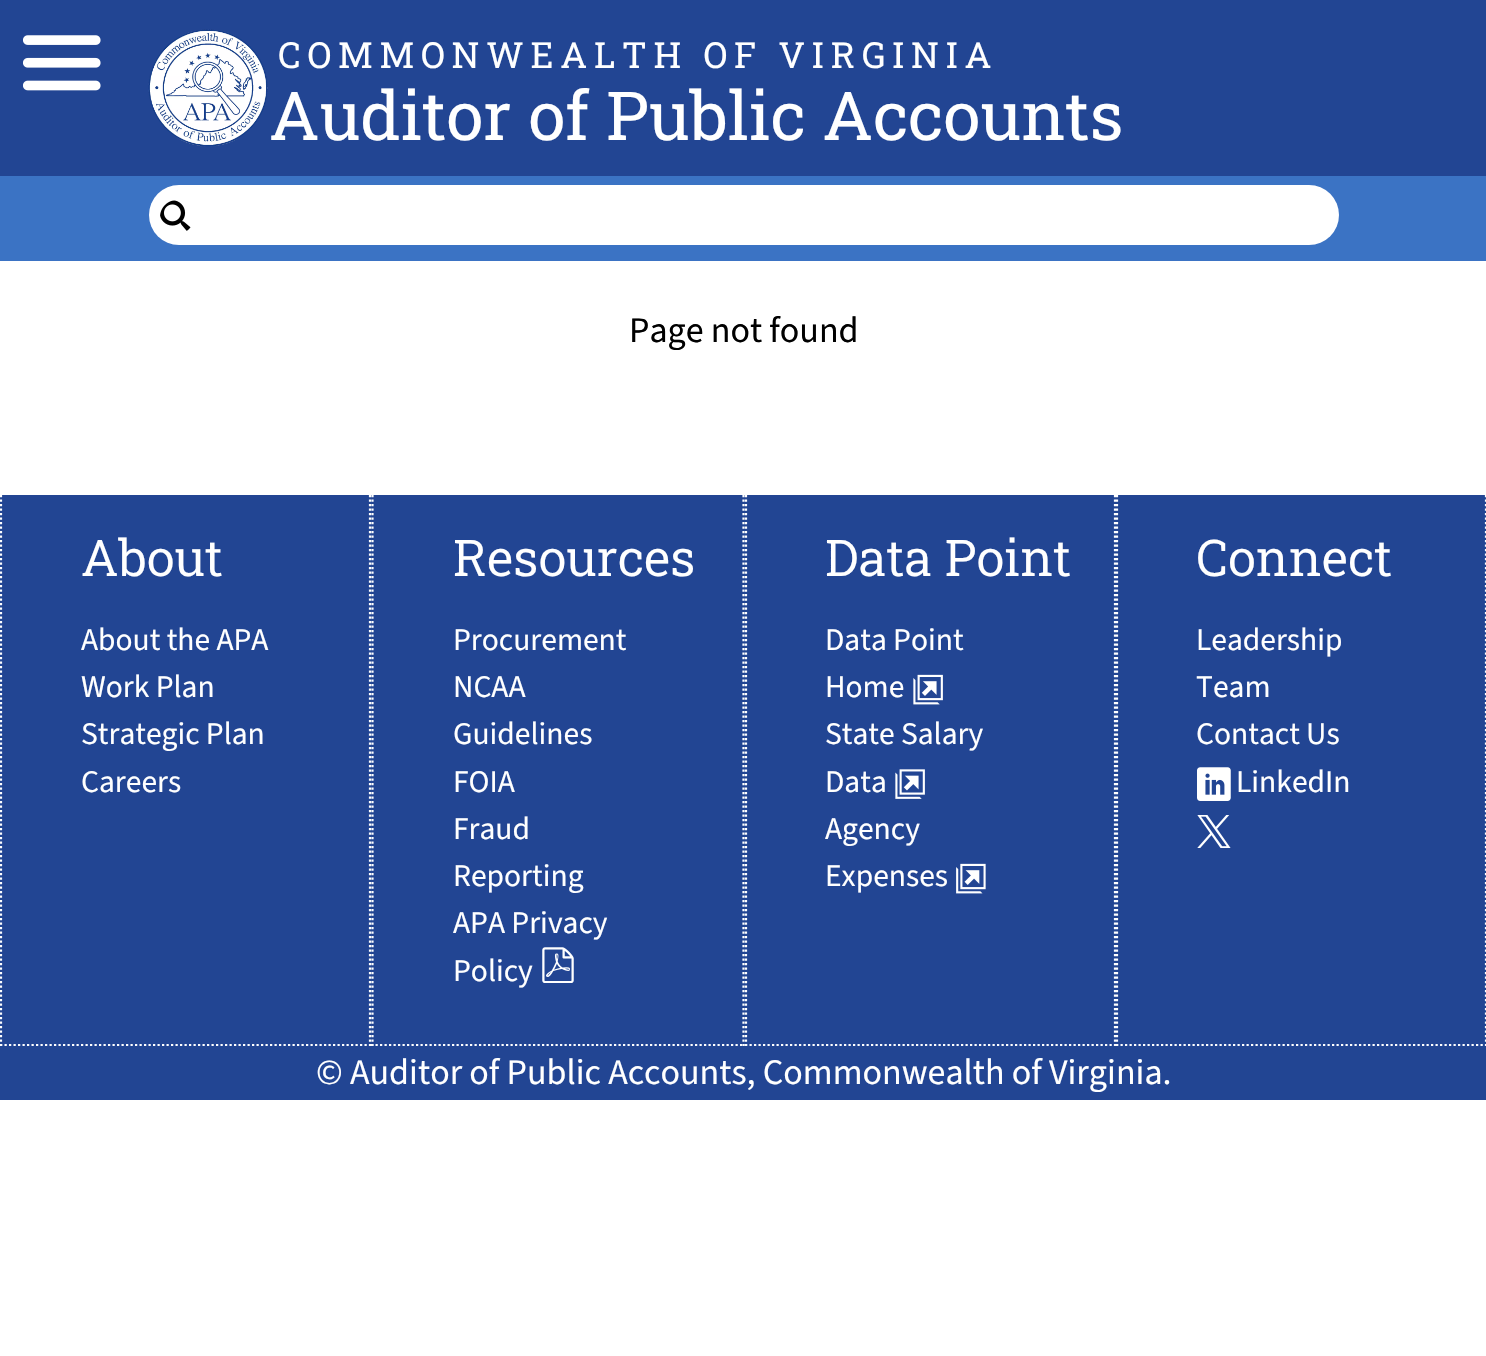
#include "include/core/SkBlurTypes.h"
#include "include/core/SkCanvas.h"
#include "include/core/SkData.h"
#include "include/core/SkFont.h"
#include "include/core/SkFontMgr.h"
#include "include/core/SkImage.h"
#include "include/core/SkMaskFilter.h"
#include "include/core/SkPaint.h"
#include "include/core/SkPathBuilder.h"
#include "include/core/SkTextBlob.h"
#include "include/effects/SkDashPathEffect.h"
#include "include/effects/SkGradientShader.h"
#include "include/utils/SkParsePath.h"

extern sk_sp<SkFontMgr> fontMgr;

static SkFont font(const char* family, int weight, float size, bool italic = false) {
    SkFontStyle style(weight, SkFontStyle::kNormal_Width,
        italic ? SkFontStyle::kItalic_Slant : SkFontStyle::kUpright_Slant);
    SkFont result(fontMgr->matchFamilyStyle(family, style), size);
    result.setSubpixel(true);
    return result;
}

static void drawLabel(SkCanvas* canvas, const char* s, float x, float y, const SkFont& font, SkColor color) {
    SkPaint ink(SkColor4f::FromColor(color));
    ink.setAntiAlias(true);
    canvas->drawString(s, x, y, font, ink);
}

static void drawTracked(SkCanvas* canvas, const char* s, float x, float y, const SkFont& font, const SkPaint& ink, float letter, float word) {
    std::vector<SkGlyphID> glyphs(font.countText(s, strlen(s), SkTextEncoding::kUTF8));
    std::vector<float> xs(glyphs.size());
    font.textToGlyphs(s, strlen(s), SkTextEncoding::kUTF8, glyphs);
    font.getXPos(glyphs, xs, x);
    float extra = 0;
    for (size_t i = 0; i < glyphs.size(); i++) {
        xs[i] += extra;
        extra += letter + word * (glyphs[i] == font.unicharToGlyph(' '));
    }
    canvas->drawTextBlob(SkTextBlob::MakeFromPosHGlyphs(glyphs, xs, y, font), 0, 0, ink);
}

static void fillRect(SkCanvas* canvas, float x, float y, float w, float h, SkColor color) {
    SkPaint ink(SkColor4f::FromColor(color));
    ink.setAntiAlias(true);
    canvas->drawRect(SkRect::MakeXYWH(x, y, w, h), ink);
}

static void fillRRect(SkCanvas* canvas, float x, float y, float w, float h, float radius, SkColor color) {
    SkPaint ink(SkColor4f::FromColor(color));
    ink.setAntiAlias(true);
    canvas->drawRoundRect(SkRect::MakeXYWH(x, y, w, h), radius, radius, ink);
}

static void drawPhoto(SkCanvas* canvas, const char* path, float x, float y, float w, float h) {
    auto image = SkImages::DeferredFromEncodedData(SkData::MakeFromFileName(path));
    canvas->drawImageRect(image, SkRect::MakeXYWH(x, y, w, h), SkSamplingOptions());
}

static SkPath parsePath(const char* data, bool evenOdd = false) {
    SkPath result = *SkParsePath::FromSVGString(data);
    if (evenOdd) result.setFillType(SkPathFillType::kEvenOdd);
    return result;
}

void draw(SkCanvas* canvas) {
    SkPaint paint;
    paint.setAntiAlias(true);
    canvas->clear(0xFFFFFFFF);
    fillRect(canvas, 0, 0, 1486, 176, 0xFF224593);
    drawPhoto(canvas, "assets/img1.png", 23, 35, 78, 56);
    drawPhoto(canvas, "assets/img2.png", 148, 29, 120, 118);
    SkFont font1 = font("Roboto Slab", 400, 36);
    paint.setColor(0xFFFFFFFF);
    drawTracked(canvas, "COMMONWEALTH OF VIRGINIA", 278, 68, font1, paint, 6.75f, 0);
    SkFont font2 = font("Roboto Slab", 400, 67.5f);
    drawLabel(canvas, "Auditor of Public Accounts", 269, 140, font2, 0xFFFFFFFF);
    fillRect(canvas, 0, 176, 1486, 85, 0xFF3B73C4);
    fillRRect(canvas, 149, 185, 1190, 60, 30, 0xFFFFFFFF);
    drawPhoto(canvas, "assets/img3.png", 160, 200, 31, 31);
    SkFont font3 = font("Source Sans 3", 400, 36);
    drawLabel(canvas, "Page not found", 629, 342, font3, 0xFF000000);
    fillRect(canvas, 0, 495, 1486, 605, 0xFF224593);
    paint.setStroke(true);
    paint.setStrokeWidth(2.2f);
    paint.setPathEffect(SkDashPathEffect::Make({{2.25f, 2.25f}}, 0));
    canvas->drawPath(parsePath("M370 495V1046"), paint);
    paint.setPathEffect(nullptr);
    paint.setPathEffect(SkDashPathEffect::Make({{2.25f, 2.25f}}, 0));
    canvas->drawPath(parsePath("M0 1045H371"), paint);
    paint.setPathEffect(nullptr);
    paint.setPathEffect(SkDashPathEffect::Make({{2.25f, 2.25f}}, 0));
    canvas->drawPath(parsePath("M1 495V1046"), paint);
    paint.setPathEffect(nullptr);
    SkFont font4 = font("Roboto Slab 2", 400, 50.5f);
    drawLabel(canvas, "About", 81, 576, font4, 0xFFFFFFFF);
    SkFont font5 = font("Source Sans 3", 400, 31.5f);
    drawLabel(canvas, "About the APA", 81, 650, font5, 0xFFFFFFFF);
    drawLabel(canvas, "Work Plan", 81, 697, font5, 0xFFFFFFFF);
    drawLabel(canvas, "Strategic Plan", 81, 744, font5, 0xFFFFFFFF);
    drawLabel(canvas, "Careers", 81, 792, font5, 0xFFFFFFFF);
    paint.setPathEffect(SkDashPathEffect::Make({{2.25f, 2.25f}}, 0));
    canvas->drawPath(parsePath("M743.5 495V1046"), paint);
    paint.setPathEffect(nullptr);
    paint.setPathEffect(SkDashPathEffect::Make({{2.25f, 2.25f}}, 0));
    canvas->drawPath(parsePath("M371 1045H745"), paint);
    paint.setPathEffect(nullptr);
    paint.setPathEffect(SkDashPathEffect::Make({{2.25f, 2.25f}}, 0));
    canvas->drawPath(parsePath("M372.5 495V1046"), paint);
    paint.setPathEffect(nullptr);
    drawLabel(canvas, "Resources", 453, 576, font4, 0xFFFFFFFF);
    drawLabel(canvas, "Procurement", 453, 650, font5, 0xFFFFFFFF);
    drawLabel(canvas, "NCAA", 453, 697, font5, 0xFFFFFFFF);
    drawLabel(canvas, "Guidelines", 453, 744, font5, 0xFFFFFFFF);
    drawLabel(canvas, "FOIA", 453, 792, font5, 0xFFFFFFFF);
    drawLabel(canvas, "Fraud", 453, 839, font5, 0xFFFFFFFF);
    drawLabel(canvas, "Reporting", 453, 886, font5, 0xFFFFFFFF);
    drawLabel(canvas, "APA Privacy", 453, 933, font5, 0xFFFFFFFF);
    drawLabel(canvas, "Policy", 453, 981, font5, 0xFFFFFFFF);
    drawPhoto(canvas, "assets/img4.png", 542, 947, 32, 36);
    paint.setPathEffect(SkDashPathEffect::Make({{2.25f, 2.25f}}, 0));
    canvas->drawPath(parsePath("M1115 495V1046"), paint);
    paint.setPathEffect(nullptr);
    paint.setPathEffect(SkDashPathEffect::Make({{2.25f, 2.25f}}, 0));
    canvas->drawPath(parsePath("M745 1045H1116"), paint);
    paint.setPathEffect(nullptr);
    paint.setPathEffect(SkDashPathEffect::Make({{2.25f, 2.25f}}, 0));
    canvas->drawPath(parsePath("M746 495V1046"), paint);
    paint.setPathEffect(nullptr);
    drawLabel(canvas, "Data Point", 825, 576, font4, 0xFFFFFFFF);
    drawLabel(canvas, "Data Point", 825, 650, font5, 0xFFFFFFFF);
    drawLabel(canvas, "Home", 825, 697, font5, 0xFFFFFFFF);
    drawPhoto(canvas, "assets/img5.png", 913, 674, 30, 31);
    drawLabel(canvas, "State Salary", 825, 744, font5, 0xFFFFFFFF);
    drawLabel(canvas, "Data", 825, 792, font5, 0xFFFFFFFF);
    drawPhoto(canvas, "assets/img6.png", 895, 769, 30, 30);
    drawLabel(canvas, "Agency", 825, 839, font5, 0xFFFFFFFF);
    drawLabel(canvas, "Expenses", 825, 886, font5, 0xFFFFFFFF);
    drawPhoto(canvas, "assets/img7.png", 956, 863, 30, 31);
    paint.setPathEffect(SkDashPathEffect::Make({{2.25f, 2.25f}}, 0));
    canvas->drawPath(parsePath("M1486 495V1046"), paint);
    paint.setPathEffect(nullptr);
    paint.setPathEffect(SkDashPathEffect::Make({{2.25f, 2.25f}}, 0));
    canvas->drawPath(parsePath("M1116 1045H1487"), paint);
    paint.setPathEffect(nullptr);
    paint.setPathEffect(SkDashPathEffect::Make({{2.25f, 2.25f}}, 0));
    canvas->drawPath(parsePath("M1117 495V1046"), paint);
    paint.setPathEffect(nullptr);
    drawLabel(canvas, "Connect", 1196, 576, font4, 0xFFFFFFFF);
    drawLabel(canvas, "Leadership", 1196, 650, font5, 0xFFFFFFFF);
    drawLabel(canvas, "Team", 1196, 697, font5, 0xFFFFFFFF);
    drawLabel(canvas, "Contact Us", 1196, 744, font5, 0xFFFFFFFF);
    drawPhoto(canvas, "assets/img8.png", 1197, 767, 34, 34);
    drawLabel(canvas, "LinkedIn", 1236, 792, font5, 0xFFFFFFFF);
    drawPhoto(canvas, "assets/img9.png", 1197, 815, 34, 33);
    drawLabel(canvas, "© Auditor of Public Accounts, Commonwealth of Virginia.", 316, 1084, font3, 0xFFFFFFFF);
}
